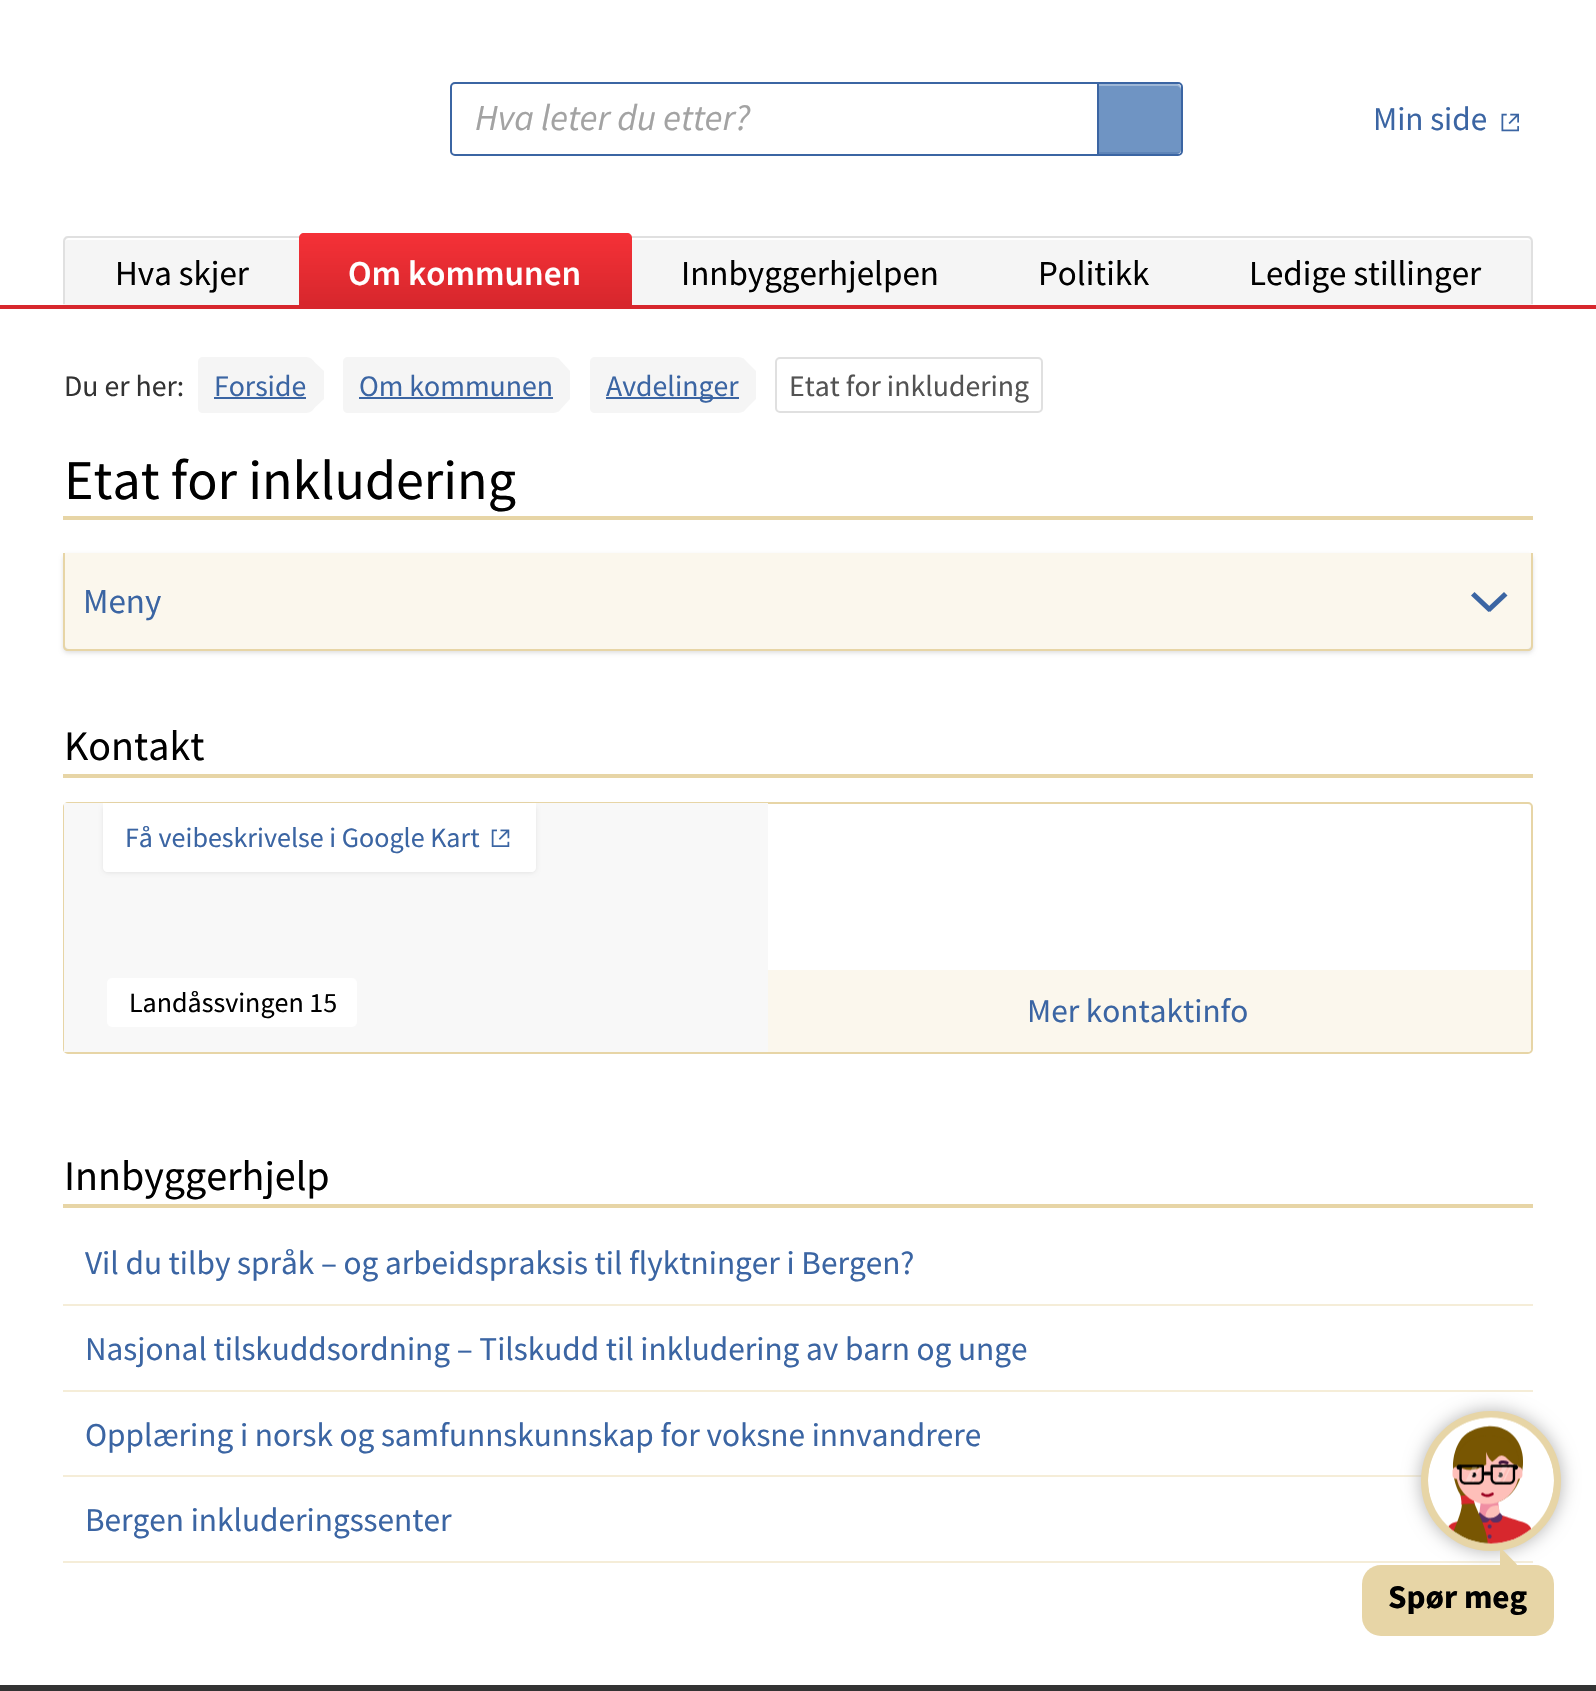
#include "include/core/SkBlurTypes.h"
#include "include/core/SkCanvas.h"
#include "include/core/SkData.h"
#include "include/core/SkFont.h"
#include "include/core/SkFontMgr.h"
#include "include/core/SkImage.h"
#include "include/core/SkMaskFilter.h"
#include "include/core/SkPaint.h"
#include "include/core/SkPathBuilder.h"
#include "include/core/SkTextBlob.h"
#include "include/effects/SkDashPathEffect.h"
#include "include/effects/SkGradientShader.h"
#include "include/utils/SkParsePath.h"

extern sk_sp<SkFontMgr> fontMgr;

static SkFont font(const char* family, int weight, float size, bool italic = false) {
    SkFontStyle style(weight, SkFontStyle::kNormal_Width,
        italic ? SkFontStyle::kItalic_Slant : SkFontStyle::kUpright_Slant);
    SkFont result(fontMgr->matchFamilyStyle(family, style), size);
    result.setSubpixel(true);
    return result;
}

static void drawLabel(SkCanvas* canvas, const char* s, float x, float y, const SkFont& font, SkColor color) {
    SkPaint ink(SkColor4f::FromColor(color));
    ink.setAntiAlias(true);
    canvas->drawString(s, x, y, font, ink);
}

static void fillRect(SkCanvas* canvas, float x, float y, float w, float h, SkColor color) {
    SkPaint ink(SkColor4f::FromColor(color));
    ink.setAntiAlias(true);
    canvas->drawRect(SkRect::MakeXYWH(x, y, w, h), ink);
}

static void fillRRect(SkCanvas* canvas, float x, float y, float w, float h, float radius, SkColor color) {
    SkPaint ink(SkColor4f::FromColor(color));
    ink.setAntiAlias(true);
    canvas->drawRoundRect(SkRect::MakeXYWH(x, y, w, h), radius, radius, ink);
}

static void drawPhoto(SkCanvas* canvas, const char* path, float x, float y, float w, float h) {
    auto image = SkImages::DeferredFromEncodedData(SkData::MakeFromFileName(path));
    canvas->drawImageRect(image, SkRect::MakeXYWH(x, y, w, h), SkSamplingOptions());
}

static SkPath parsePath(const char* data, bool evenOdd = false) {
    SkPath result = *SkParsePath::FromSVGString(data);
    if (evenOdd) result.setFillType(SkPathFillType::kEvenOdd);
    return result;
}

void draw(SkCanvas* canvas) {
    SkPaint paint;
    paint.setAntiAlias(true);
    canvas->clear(0xFFFFFFFF);
    fillRect(canvas, 0, 305, 1596, 4, 0xFFD7272D);
    paint.setStroke(true);
    paint.setStrokeWidth(2);
    paint.setColor(0xFF3B65A3);
    canvas->drawRoundRect(SkRect::MakeXYWH(451, 83, 731, 72), 4, 4, paint);
    SkFont font1 = font("Source Sans Pro", 400, 36.75f, true);
    drawLabel(canvas, "Hva leter du etter?", 475, 130, font1, 0xFFA3A3A3);
    paint.setStroke(false);
    paint.setColor(0xFF6F94C3);
    canvas->drawPath(parsePath("M1097 84H1176C1179 84 1181 86 1181 89V150C1181 152 1179 154 1177 154H1097Z"), paint);
    paint.setColor(0x523B65A3);
    canvas->drawPath(parsePath("M1099 152V154H1177C1179 154 1181 152 1181 150V149C1181 151 1180 152 1178 152Z"), paint);
    paint.setColor(0x52FFFFFF);
    canvas->drawPath(parsePath("M1099 86H1176C1179 86 1181 88 1181 91V89C1181 86 1179 84 1176 84H1099Z"), paint);
    fillRect(canvas, 1097, 84, 2, 70, 0xFF3B65A3);
    SkFont font2 = font("Source Sans Pro", 400, 33.25f);
    drawLabel(canvas, "Min side", 1373, 130, font2, 0xFF3B65A3);
    drawPhoto(canvas, "assets/img1.png", 1501, 113, 18, 19);
    paint.setColor(0xFFF5F5F5);
    canvas->drawPath(parsePath("M68 236H1528C1531 236 1533 238 1533 241V305H63V241C63 238 65 236 68 236Z"), paint);
    paint.setColor(0xFFFFFFFF);
    canvas->drawPath(parsePath("M68 240H1528C1530 240 1531 241 1531 243V242C1531 240 1529 238 1527 238H69C67 238 65 240 65 242V243C65 241 66 240 68 240Z"), paint);
    paint.setColor(0xFFE0E0E0);
    canvas->drawPath(parsePath("M68 236H1528C1531 236 1533 239 1533 242V304H63V242C63 239 65 236 68 236ZM68 238H1528C1530 238 1531 240 1531 242V304H65V242C65 240 66 238 68 238Z", true), paint);
    SkFont font3 = font("Source Sans Pro", 400, 35);
    drawLabel(canvas, "Hva skjer", 115, 285, font3, 0xFF000000);
    {
        const SkColor colors[] = {0xFFF53137, 0xFFD7272D};
        const float stops[] = {0, 1};
        const SkPoint ends[] = {{466, 233}, {466, 305}};
        paint.setShader(SkGradientShader::MakeLinear(ends, colors, stops, 2, SkTileMode::kClamp));
        paint.setAlpha(255);
    }
    canvas->drawPath(parsePath("M304 233H627C630 233 632 235 632 238V305H299V238C299 235 301 233 304 233Z"), paint);
    SkFont font4 = font("Source Sans Pro", 600, 35);
    drawLabel(canvas, "Om kommunen", 348, 285, font4, 0xFFFFFFFF);
    drawLabel(canvas, "Innbyggerhjelpen", 681, 285, font3, 0xFF000000);
    drawLabel(canvas, "Politikk", 1038, 285, font3, 0xFF000000);
    drawLabel(canvas, "Ledige stillinger", 1249, 285, font3, 0xFF000000);
    SkFont font5 = font("Source Sans Pro", 400, 29.75f);
    drawLabel(canvas, "Du er her:", 64, 396, font5, 0xFF333333);
    paint.setShader(nullptr);
    paint.setColor(0xFFF5F5F5);
    canvas->drawPath(parsePath("M311 359L324 371V399L311 411C310 411 310 409 310 408V362C310 361 310 359 311 359Z"), paint);
    canvas->drawPath(parsePath("M203 357H306C311 357 315 361 315 366V404C315 409 311 413 306 413H203C200 413 198 411 198 408V362C198 359 200 357 203 357Z"), paint);
    drawLabel(canvas, "Forside", 214, 396, font5, 0xFF3B65A3);
    fillRect(canvas, 214, 397, 92, 2, 0xFF3B65A3);
    canvas->drawPath(parsePath("M556 360L558 358L570 371V399L558 412L556 410Z"), paint);
    canvas->drawPath(parsePath("M348 357H553C558 357 562 361 562 366V404C562 409 558 413 553 413H348C345 413 343 411 343 408V362C343 359 345 357 348 357Z"), paint);
    drawLabel(canvas, "Om kommunen", 359, 396, font5, 0xFF3B65A3);
    fillRect(canvas, 359, 397, 194, 2, 0xFF3B65A3);
    canvas->drawPath(parsePath("M742 362V408C742 410 742 411 743 412L756 399V371L743 358C742 359 742 360 742 362Z"), paint);
    canvas->drawPath(parsePath("M595 357H738C743 357 747 361 747 366V404C747 409 743 413 738 413H595C592 413 590 411 590 408V362C590 359 592 357 595 357Z"), paint);
    fillRect(canvas, 606, 397, 133, 2, 0xFF3B65A3);
    drawLabel(canvas, "Avdelinger", 606, 396, font5, 0xFF3B65A3);
    paint.setStroke(true);
    paint.setColor(0xFFE0E0E0);
    canvas->drawRoundRect(SkRect::MakeXYWH(776, 358, 266, 54), 4, 4, paint);
    drawLabel(canvas, "Etat for inkludering", 789, 396, font5, 0xFF535353);
    fillRect(canvas, 63, 516, 1470, 4, 0xFFE7D5A6);
    SkFont font6 = font("Source Sans Pro", 400, 56);
    drawLabel(canvas, "Etat for inkludering", 64, 499, font6, 0xFF000000);
    paint.setStroke(false);
    paint.setMaskFilter(SkMaskFilter::MakeBlur(kNormal_SkBlurStyle, 2));
    canvas->drawRoundRect(SkRect::MakeXYWH(63, 555, 1470, 98), 5, 5, paint);
    paint.setMaskFilter(nullptr);
    paint.setColor(0xFFE7D5A6);
    canvas->drawPath(parsePath("M63 553H1533V646C1533 649 1531 651 1528 651H68C65 651 63 649 63 646ZM65 553H1531V646C1531 648 1530 649 1528 649H68C66 649 65 648 65 646Z", true), paint);
    paint.setColor(0xFFFBF7ED);
    canvas->drawPath(parsePath("M65 553H1531V645C1531 647 1529 649 1527 649H69C67 649 65 647 65 645Z"), paint);
    drawLabel(canvas, "Meny", 83, 613, font3, 0xFF3B65A3);
    paint.setColor(0xFF3B65A3);
    canvas->drawPath(parsePath("M1474.5 592L1492 608.5L1488.5 612L1471 595.5Z"), paint);
    canvas->drawPath(parsePath("M1486.5 608.5L1504 592L1507.5 595.5L1490 612Z"), paint);
    fillRect(canvas, 63, 774, 1470, 4, 0xFFE7D5A6);
    SkFont font7 = font("Source Sans Pro", 400, 42);
    drawLabel(canvas, "Kontakt", 64, 760, font7, 0xFF000000);
    paint.setStroke(true);
    paint.setColor(0xFFE7D5A6);
    canvas->drawRoundRect(SkRect::MakeXYWH(64, 803, 1468, 250), 4, 4, paint);
    fillRect(canvas, 64, 803, 704, 249, 0xFFF8F8F8);
    canvas->save();
    canvas->clipPath(parsePath("M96 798H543V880H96ZM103 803H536V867C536 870 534 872 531 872H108C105 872 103 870 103 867Z", true), true);
    paint.setStroke(false);
    paint.setColor(0x14000000);
    paint.setMaskFilter(SkMaskFilter::MakeBlur(kNormal_SkBlurStyle, 2));
    canvas->drawRoundRect(SkRect::MakeXYWH(103, 805, 433, 68), 5, 5, paint);
    paint.setMaskFilter(nullptr);
    canvas->restore();
    paint.setColor(0xF7FFFFFF);
    canvas->drawPath(parsePath("M103 803H536V867C536 870 534 872 531 872H108C105 872 103 870 103 867Z"), paint);
    SkFont font8 = font("Source Sans Pro", 400, 28);
    drawLabel(canvas, "Få veibeskrivelse i Google Kart", 125, 847, font8, 0xFF3B65A3);
    drawPhoto(canvas, "assets/img2.png", 491, 829, 19, 18);
    fillRRect(canvas, 107, 978, 250, 49, 5, 0xFFFFFFFF);
    drawLabel(canvas, "Landåssvingen 15", 129, 1012, font8, 0xFF000000);
    paint.setColor(0xFFFBF7ED);
    canvas->drawPath(parsePath("M768 970H1531V1047C1531 1050 1529 1052 1526 1052H768Z"), paint);
    drawLabel(canvas, "Mer kontaktinfo", 1027, 1022, font2, 0xFF3B65A3);
    fillRect(canvas, 63, 1204, 1470, 4, 0xFFE7D5A6);
    drawLabel(canvas, "Innbyggerhjelp", 64, 1190, font7, 0xFF000000);
    fillRect(canvas, 63, 1304, 1470, 2, 0xFFF5EDD8);
    drawLabel(canvas, "Vil du tilby språk – og arbeidspraksis til flyktninger i Bergen?", 85, 1274, font2, 0xFF3B65A3);
    fillRect(canvas, 63, 1390, 1470, 2, 0xFFF5EDD8);
    drawLabel(canvas, "Nasjonal tilskuddsordning – Tilskudd til inkludering av barn og unge", 85, 1360, font2, 0xFF3B65A3);
    fillRect(canvas, 63, 1475, 1359, 2, 0xFFF5EDD8);
    drawLabel(canvas, "Opplæring i norsk og samfunnskunnskap for voksne innvandrere", 85, 1446, font2, 0xFF3B65A3);
    fillRect(canvas, 63, 1561, 1470, 2, 0xFFF5EDD8);
    drawLabel(canvas, "Bergen inkluderingssenter", 85, 1531, font2, 0xFF3B65A3);
    paint.setColor(0xFFB3B3B3);
    paint.setMaskFilter(SkMaskFilter::MakeBlur(kNormal_SkBlurStyle, 9));
    canvas->drawRoundRect(SkRect::MakeXYWH(1421, 1411, 140, 140), 70, 70, paint);
    paint.setMaskFilter(nullptr);
    paint.setColor(0xFFE7D5A6);
    canvas->drawCircle(1491, 1481, 66.5f, paint);
    paint.setStroke(true);
    paint.setStrokeWidth(7);
    canvas->drawCircle(1491, 1481, 66.5f, paint);
    drawPhoto(canvas, "assets/img3.png", 1428, 1417, 126, 127);
    fillRRect(canvas, 1362, 1565, 192, 71, 19, 0xFFE7D5A6);
    paint.setStroke(false);
    canvas->drawPath(parsePath("M1500 1582V1547L1517 1564.5Z"), paint);
    SkFont font9 = font("Source Sans Pro", 700, 33.25f);
    drawLabel(canvas, "Spør meg", 1388, 1608, font9, 0xFF000000);
    fillRect(canvas, 0, 1685, 1596, 6, 0xFF333333);
}
